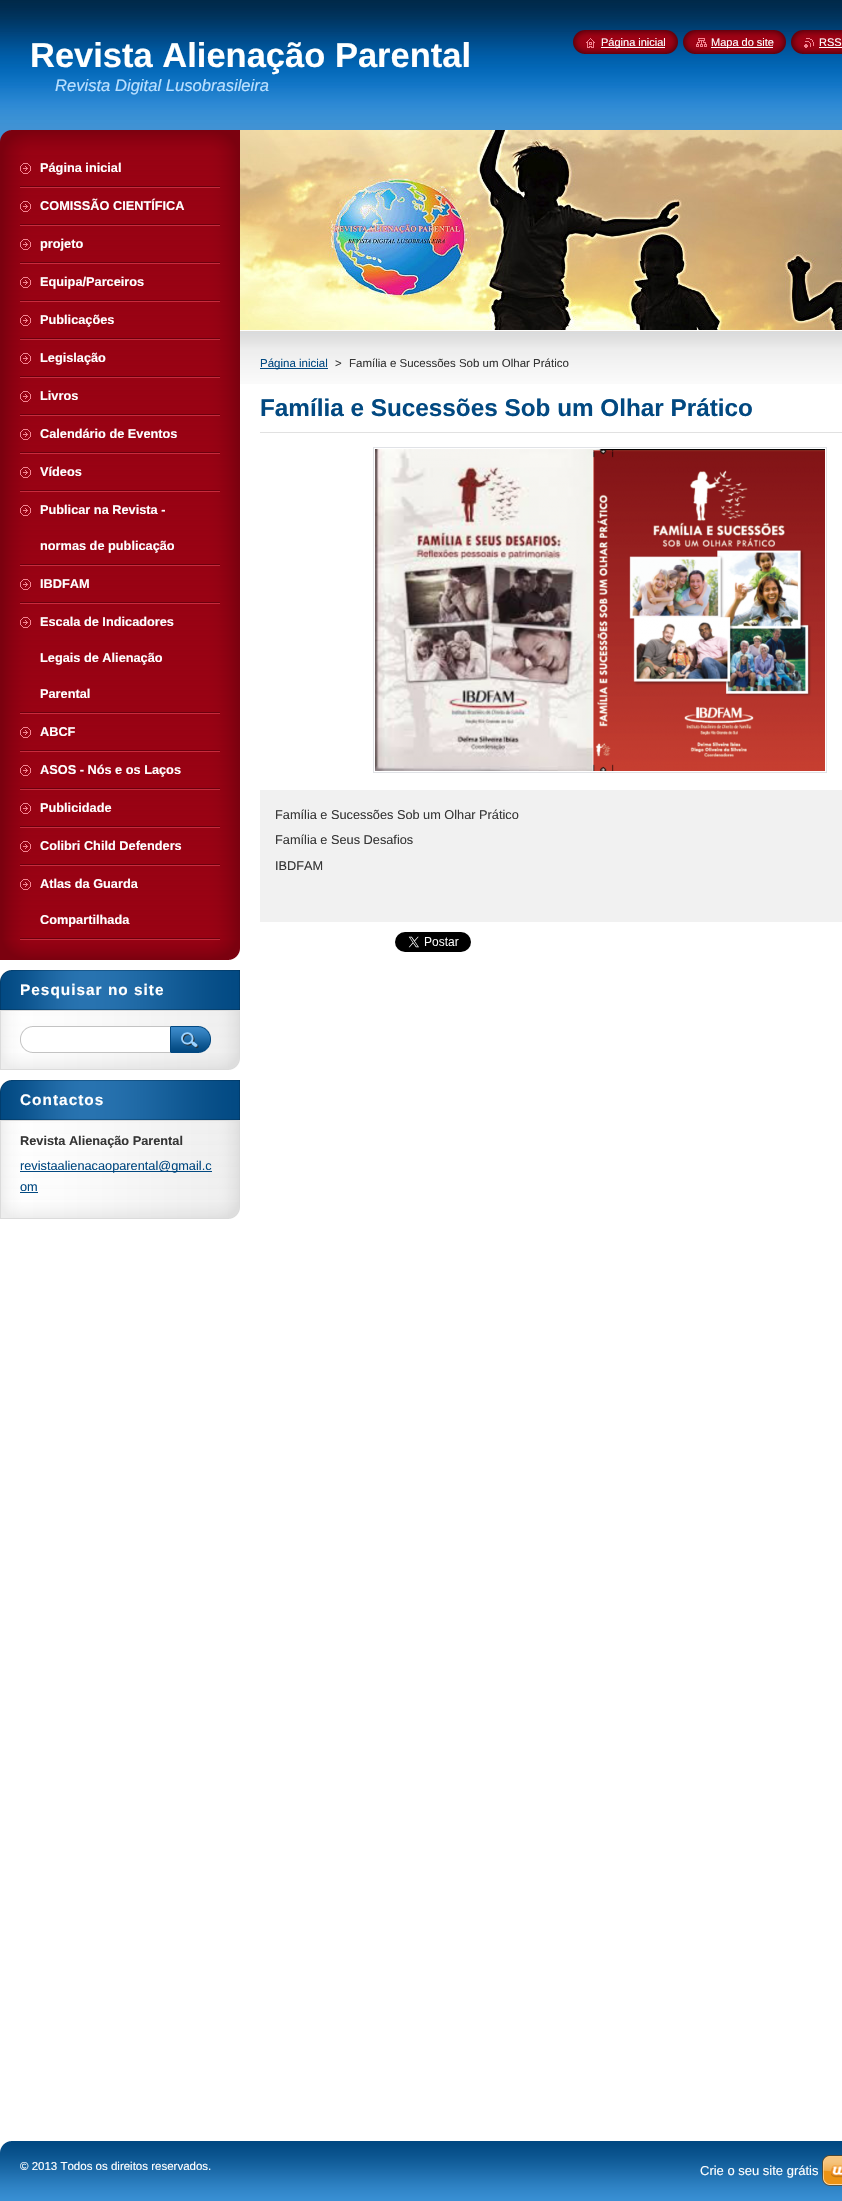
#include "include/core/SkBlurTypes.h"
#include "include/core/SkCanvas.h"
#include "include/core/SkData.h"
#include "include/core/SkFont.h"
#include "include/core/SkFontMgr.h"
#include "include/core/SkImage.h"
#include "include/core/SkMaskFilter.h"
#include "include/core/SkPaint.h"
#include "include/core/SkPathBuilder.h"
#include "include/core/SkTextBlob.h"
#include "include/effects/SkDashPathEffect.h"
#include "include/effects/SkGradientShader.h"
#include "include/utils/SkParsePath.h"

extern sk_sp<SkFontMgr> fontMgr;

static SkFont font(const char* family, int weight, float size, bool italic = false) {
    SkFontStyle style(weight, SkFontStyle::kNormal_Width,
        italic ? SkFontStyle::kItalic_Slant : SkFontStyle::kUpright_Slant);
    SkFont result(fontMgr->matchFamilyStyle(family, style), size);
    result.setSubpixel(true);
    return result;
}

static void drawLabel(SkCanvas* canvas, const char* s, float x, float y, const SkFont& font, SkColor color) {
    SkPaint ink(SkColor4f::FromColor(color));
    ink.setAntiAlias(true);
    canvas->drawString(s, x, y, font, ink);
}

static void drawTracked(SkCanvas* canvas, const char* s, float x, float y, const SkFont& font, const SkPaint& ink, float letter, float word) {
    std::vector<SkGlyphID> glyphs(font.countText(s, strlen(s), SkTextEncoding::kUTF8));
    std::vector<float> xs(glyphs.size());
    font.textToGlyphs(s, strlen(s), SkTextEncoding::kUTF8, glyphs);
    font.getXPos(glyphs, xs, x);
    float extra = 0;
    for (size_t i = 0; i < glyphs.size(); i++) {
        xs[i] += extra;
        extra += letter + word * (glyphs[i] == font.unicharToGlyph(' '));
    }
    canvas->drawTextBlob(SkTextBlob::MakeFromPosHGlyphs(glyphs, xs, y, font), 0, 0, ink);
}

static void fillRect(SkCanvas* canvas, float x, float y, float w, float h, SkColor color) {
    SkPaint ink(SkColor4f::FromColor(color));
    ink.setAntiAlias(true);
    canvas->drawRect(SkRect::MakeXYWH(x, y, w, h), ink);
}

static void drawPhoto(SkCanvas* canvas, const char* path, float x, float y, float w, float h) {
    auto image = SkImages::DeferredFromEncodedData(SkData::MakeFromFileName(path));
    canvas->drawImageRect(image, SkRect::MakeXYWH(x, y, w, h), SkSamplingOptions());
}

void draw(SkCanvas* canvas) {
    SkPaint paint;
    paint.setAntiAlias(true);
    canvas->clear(0xFFFFFFFF);
    drawPhoto(canvas, "assets/img1.png", 0, 0, 842, 384);
    SkFont font1 = font("Liberation Sans", 700, 34.5f);
    drawLabel(canvas, "Revista Alienação Parental", 30, 67, font1, 0xFFFFFFFF);
    SkFont font2 = font("Liberation Sans", 400, 16.6f, true);
    drawLabel(canvas, "Revista Digital Lusobrasileira", 55, 91, font2, 0xFFBAE0FF);
    drawPhoto(canvas, "assets/img2.png", 573, 30, 13, 24);
    drawPhoto(canvas, "assets/img3.png", 586, 30, 92, 24);
    drawPhoto(canvas, "assets/img4.png", 586, 38, 9, 10);
    fillRect(canvas, 601, 47, 64, 1, 0xFFFFFFFF);
    SkFont font3 = font("Liberation Sans", 400, 11);
    drawLabel(canvas, "Página inicial", 601, 46, font3, 0xFFFFFFFF);
    drawPhoto(canvas, "assets/img2.png", 683, 30, 13, 24);
    drawPhoto(canvas, "assets/img5.png", 696, 30, 90, 24);
    drawPhoto(canvas, "assets/img6.png", 696, 38, 11, 9);
    fillRect(canvas, 711, 47, 62, 1, 0xFFFFFFFF);
    drawLabel(canvas, "Mapa do site", 711, 46, font3, 0xFFFFFFFF);
    drawPhoto(canvas, "assets/img2.png", 791, 30, 13, 24);
    drawPhoto(canvas, "assets/img7.png", 804, 30, 38, 24);
    drawPhoto(canvas, "assets/img8.png", 804, 38, 10, 10);
    drawLabel(canvas, "RSS", 819, 46, font3, 0xFFFFFFFF);
    fillRect(canvas, 819, 47, 23, 1, 0xFFFFFFFF);
    drawPhoto(canvas, "assets/img9.png", 0, 130, 240, 20);
    drawPhoto(canvas, "assets/img10.png", 0, 940, 240, 20);
    drawPhoto(canvas, "assets/img11.png", 0, 150, 240, 790);
    drawPhoto(canvas, "assets/img12.png", 20, 186, 200, 2);
    drawPhoto(canvas, "assets/img13.png", 20, 163, 11, 11);
    SkFont font4 = font("Liberation Sans", 700, 12.75f);
    drawLabel(canvas, "Página inicial", 40, 172, font4, 0xFFFFFFFF);
    drawPhoto(canvas, "assets/img12.png", 20, 224, 200, 2);
    drawPhoto(canvas, "assets/img13.png", 20, 201, 11, 11);
    drawLabel(canvas, "COMISSÃO CIENTÍFICA", 40, 210, font4, 0xFFFFFFFF);
    drawPhoto(canvas, "assets/img12.png", 20, 262, 200, 2);
    drawPhoto(canvas, "assets/img13.png", 20, 239, 11, 11);
    drawLabel(canvas, "projeto", 40, 248, font4, 0xFFFFFFFF);
    drawPhoto(canvas, "assets/img12.png", 20, 300, 200, 2);
    drawPhoto(canvas, "assets/img13.png", 20, 277, 11, 11);
    drawLabel(canvas, "Equipa/Parceiros", 40, 286, font4, 0xFFFFFFFF);
    drawPhoto(canvas, "assets/img12.png", 20, 338, 200, 2);
    drawPhoto(canvas, "assets/img13.png", 20, 315, 11, 11);
    drawLabel(canvas, "Publicações", 40, 324, font4, 0xFFFFFFFF);
    drawPhoto(canvas, "assets/img12.png", 20, 376, 200, 2);
    drawPhoto(canvas, "assets/img13.png", 20, 353, 11, 11);
    drawLabel(canvas, "Legislação", 40, 362, font4, 0xFFFFFFFF);
    drawPhoto(canvas, "assets/img12.png", 20, 414, 200, 2);
    drawPhoto(canvas, "assets/img13.png", 20, 391, 11, 11);
    drawLabel(canvas, "Livros", 40, 400, font4, 0xFFFFFFFF);
    drawPhoto(canvas, "assets/img12.png", 20, 452, 200, 2);
    drawPhoto(canvas, "assets/img13.png", 20, 429, 11, 11);
    drawLabel(canvas, "Calendário de Eventos", 40, 438, font4, 0xFFFFFFFF);
    drawPhoto(canvas, "assets/img12.png", 20, 490, 200, 2);
    drawPhoto(canvas, "assets/img13.png", 20, 467, 11, 11);
    drawLabel(canvas, "Vídeos", 40, 476, font4, 0xFFFFFFFF);
    drawPhoto(canvas, "assets/img12.png", 20, 564, 200, 2);
    drawPhoto(canvas, "assets/img13.png", 20, 505, 11, 11);
    drawLabel(canvas, "Publicar na Revista -", 40, 514, font4, 0xFFFFFFFF);
    drawLabel(canvas, "normas de publicação", 40, 550, font4, 0xFFFFFFFF);
    drawPhoto(canvas, "assets/img12.png", 20, 602, 200, 2);
    drawPhoto(canvas, "assets/img13.png", 20, 579, 11, 11);
    drawLabel(canvas, "IBDFAM", 40, 588, font4, 0xFFFFFFFF);
    drawPhoto(canvas, "assets/img12.png", 20, 712, 200, 2);
    drawPhoto(canvas, "assets/img13.png", 20, 617, 11, 11);
    drawLabel(canvas, "Escala de Indicadores", 40, 626, font4, 0xFFFFFFFF);
    drawLabel(canvas, "Legais de Alienação", 40, 662, font4, 0xFFFFFFFF);
    drawLabel(canvas, "Parental", 40, 698, font4, 0xFFFFFFFF);
    drawPhoto(canvas, "assets/img12.png", 20, 750, 200, 2);
    drawPhoto(canvas, "assets/img13.png", 20, 727, 11, 11);
    drawLabel(canvas, "ABCF", 40, 736, font4, 0xFFFFFFFF);
    drawPhoto(canvas, "assets/img12.png", 20, 788, 200, 2);
    drawPhoto(canvas, "assets/img13.png", 20, 765, 11, 11);
    drawLabel(canvas, "ASOS - Nós e os Laços", 40, 774, font4, 0xFFFFFFFF);
    drawPhoto(canvas, "assets/img12.png", 20, 826, 200, 2);
    drawPhoto(canvas, "assets/img13.png", 20, 803, 11, 11);
    drawLabel(canvas, "Publicidade", 40, 812, font4, 0xFFFFFFFF);
    drawPhoto(canvas, "assets/img12.png", 20, 864, 200, 2);
    drawPhoto(canvas, "assets/img13.png", 20, 841, 11, 11);
    drawLabel(canvas, "Colibri Child Defenders", 40, 850, font4, 0xFFFFFFFF);
    drawPhoto(canvas, "assets/img12.png", 20, 938, 200, 2);
    drawPhoto(canvas, "assets/img13.png", 20, 879, 11, 11);
    drawLabel(canvas, "Atlas da Guarda", 40, 888, font4, 0xFFFFFFFF);
    drawLabel(canvas, "Compartilhada", 40, 924, font4, 0xFFFFFFFF);
    drawPhoto(canvas, "assets/img14.png", 0, 1053, 240, 17);
    drawPhoto(canvas, "assets/img15.png", 0, 970, 240, 40);
    SkFont font5 = font("Liberation Sans", 700, 15.4f);
    paint.setColor(0xFFFFFFFF);
    drawTracked(canvas, "Pesquisar no site", 20, 995, font5, paint, 1, 0);
    drawPhoto(canvas, "assets/img16.png", 0, 1011, 240, 42);
    fillRect(canvas, 0, 1010, 240, 1, 0xFFDBDBDB);
    drawPhoto(canvas, "assets/img17.png", 20, 1026, 150, 27);
    drawPhoto(canvas, "assets/img18.png", 170, 1026, 41, 27);
    drawPhoto(canvas, "assets/img14.png", 0, 1202, 240, 17);
    drawPhoto(canvas, "assets/img15.png", 0, 1080, 240, 40);
    drawTracked(canvas, "Contactos", 20, 1105, font5, paint, 1, 0);
    drawPhoto(canvas, "assets/img19.png", 0, 1121, 240, 81);
    fillRect(canvas, 0, 1120, 240, 1, 0xFFDBDBDB);
    drawLabel(canvas, "Revista Alienação Parental", 20, 1145, font4, 0xFF363636);
    fillRect(canvas, 20, 1171, 192, 1, 0xFF024981);
    SkFont font6 = font("Liberation Sans", 400, 12.75f);
    drawLabel(canvas, "revistaalienacaoparental@gmail.c", 20, 1170, font6, 0xFF024981);
    drawLabel(canvas, "om", 20, 1191, font6, 0xFF024981);
    fillRect(canvas, 20, 1192, 18, 1, 0xFF024981);
    drawPhoto(canvas, "assets/img20.png", 240, 130, 602, 200);
    fillRect(canvas, 260, 368, 68, 1, 0xFF024981);
    SkFont font7 = font("Liberation Sans", 400, 11.5f);
    drawLabel(canvas, "Página inicial", 260, 367, font7, 0xFF024981);
    drawLabel(canvas, ">", 335, 367, font7, 0xFF363636);
    drawLabel(canvas, "Família e Sucessões Sob um Olhar Prático", 349, 367, font7, 0xFF363636);
    fillRect(canvas, 260, 432, 582, 1, 0xFFE1E1E1);
    SkFont font8 = font("Liberation Sans", 700, 24.3f);
    drawLabel(canvas, "Família e Sucessões Sob um Olhar Prático", 260, 416, font8, 0xFF024981);
    paint.setStroke(true);
    paint.setStrokeWidth(1);
    paint.setColor(0xFFE0E2E6);
    canvas->drawRect(SkRect::MakeXYWH(373.5f, 447.5f, 453, 325), paint);
    drawPhoto(canvas, "assets/img21.png", 375, 449, 450, 322);
    fillRect(canvas, 260, 790, 582, 132, 0xFFF1F1F1);
    drawLabel(canvas, "Família e Sucessões Sob um Olhar Prático", 275, 819, font6, 0xFF363636);
    drawLabel(canvas, "Família e Seus Desafios", 275, 844, font6, 0xFF363636);
    drawLabel(canvas, "IBDFAM", 275, 870, font6, 0xFF363636);
    drawPhoto(canvas, "assets/img22.png", 395, 932, 76, 20);
    drawPhoto(canvas, "assets/img23.png", 0, 2141, 842, 60);
    drawLabel(canvas, "© 2013 Todos os direitos reservados.", 20, 2170, font7, 0xFFFFFFFF);
    SkFont font9 = font("Liberation Sans", 400, 13);
    drawLabel(canvas, "Crie o seu site grátis", 700, 2175, font9, 0xFFFFFFFF);
    drawPhoto(canvas, "assets/img24.png", 822, 2155, 20, 31);
}
